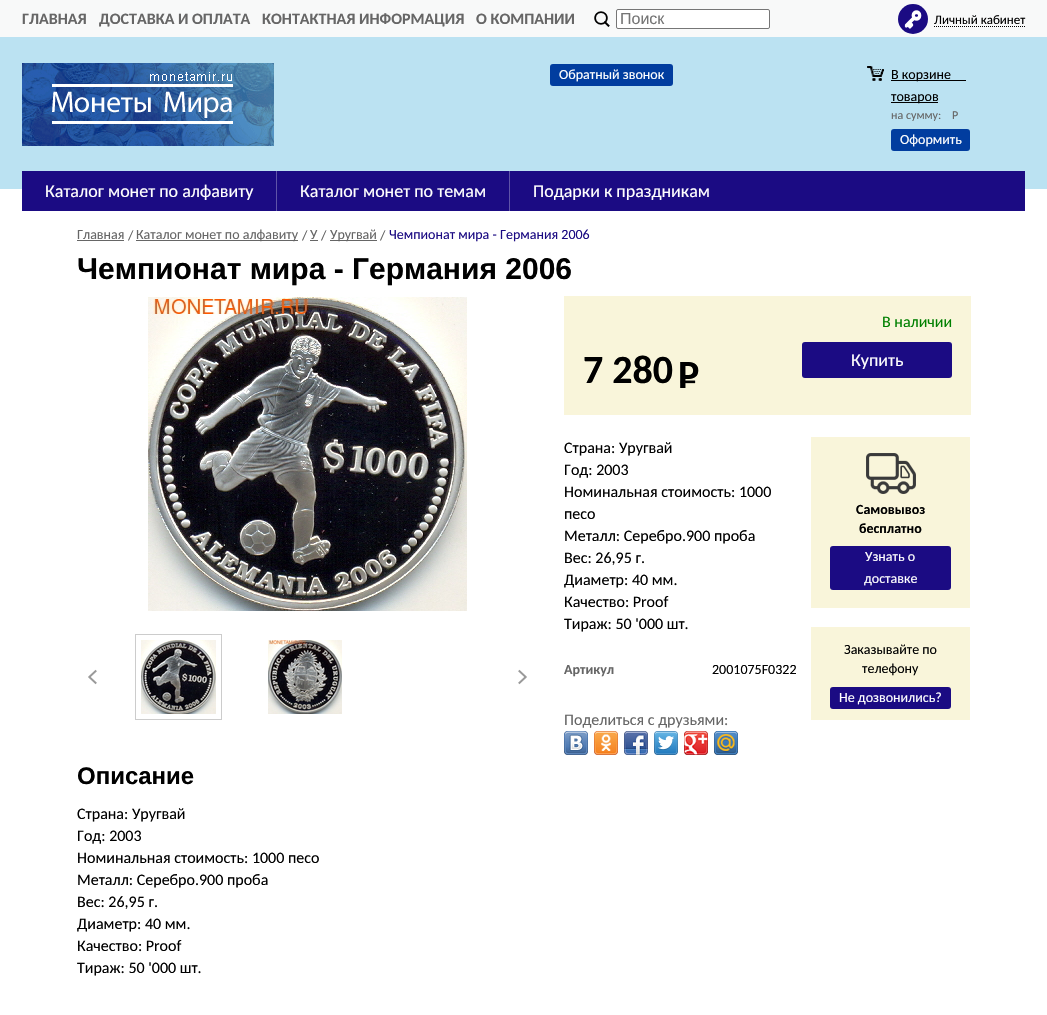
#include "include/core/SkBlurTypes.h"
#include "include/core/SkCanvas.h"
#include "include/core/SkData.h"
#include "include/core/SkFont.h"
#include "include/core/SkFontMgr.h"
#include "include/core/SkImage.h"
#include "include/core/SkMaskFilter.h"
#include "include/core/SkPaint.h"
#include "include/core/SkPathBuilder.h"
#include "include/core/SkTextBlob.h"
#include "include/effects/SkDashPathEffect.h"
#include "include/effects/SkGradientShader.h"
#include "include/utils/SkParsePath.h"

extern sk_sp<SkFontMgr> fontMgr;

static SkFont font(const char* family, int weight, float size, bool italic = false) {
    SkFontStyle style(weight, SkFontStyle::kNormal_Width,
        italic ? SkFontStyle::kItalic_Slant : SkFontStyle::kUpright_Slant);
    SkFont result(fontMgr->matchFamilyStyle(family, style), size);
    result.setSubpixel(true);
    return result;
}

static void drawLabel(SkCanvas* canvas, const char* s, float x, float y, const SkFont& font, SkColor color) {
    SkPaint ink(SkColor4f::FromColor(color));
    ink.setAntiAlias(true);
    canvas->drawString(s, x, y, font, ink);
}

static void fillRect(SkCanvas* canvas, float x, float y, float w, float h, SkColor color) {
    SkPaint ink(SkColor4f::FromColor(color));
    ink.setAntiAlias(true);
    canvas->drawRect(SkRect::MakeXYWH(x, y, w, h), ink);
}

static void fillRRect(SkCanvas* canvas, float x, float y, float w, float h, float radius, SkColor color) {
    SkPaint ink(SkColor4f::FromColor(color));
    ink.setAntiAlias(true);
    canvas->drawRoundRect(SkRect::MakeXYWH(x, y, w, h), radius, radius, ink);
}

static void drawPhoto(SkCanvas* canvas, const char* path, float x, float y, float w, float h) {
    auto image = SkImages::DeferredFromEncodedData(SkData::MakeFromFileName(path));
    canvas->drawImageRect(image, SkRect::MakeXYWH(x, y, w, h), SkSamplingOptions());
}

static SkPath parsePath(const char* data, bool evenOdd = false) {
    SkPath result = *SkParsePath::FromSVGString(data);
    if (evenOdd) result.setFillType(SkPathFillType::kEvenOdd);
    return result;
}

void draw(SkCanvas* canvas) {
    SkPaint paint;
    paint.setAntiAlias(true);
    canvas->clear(0xFFFFFFFF);
    fillRect(canvas, 0, 0, 1047, 37, 0xFFF8F9F9);
    SkFont font1 = font("Carlito", 700, 16);
    drawLabel(canvas, "ГЛАВНАЯ", 22, 24, font1, 0xFF666666);
    drawLabel(canvas, "ДОСТАВКА И ОПЛАТА", 99, 24, font1, 0xFF666666);
    drawLabel(canvas, "КОНТАКТНАЯ ИНФОРМАЦИЯ", 262, 24, font1, 0xFF666666);
    drawLabel(canvas, "О КОМПАНИИ", 476, 24, font1, 0xFF666666);
    drawPhoto(canvas, "assets/img1.png", 594, 11, 16, 16);
    paint.setColor(0xFFFFFFFF);
    canvas->drawRoundRect(SkRect::MakeXYWH(616.5f, 9.5f, 153, 19), 1.5f, 1.5f, paint);
    paint.setStroke(true);
    paint.setStrokeWidth(1);
    paint.setColor(0xFF767676);
    canvas->drawRoundRect(SkRect::MakeXYWH(616.5f, 9.5f, 153, 19), 1.5f, 1.5f, paint);
    SkFont font2 = font("Liberation Sans", 400, 16);
    drawLabel(canvas, "Поиск", 620, 24, font2, 0xFF757575);
    paint.setStroke(false);
    paint.setColor(0xFF1B0B83);
    canvas->drawCircle(913, 19, 15, paint);
    drawPhoto(canvas, "assets/img2.png", 904, 10, 18, 19);
    paint.setStroke(true);
    paint.setColor(0xFF000000);
    paint.setPathEffect(SkDashPathEffect::Make({{1, 1}}, 0));
    canvas->drawPath(parsePath("M934 26.5H1025"), paint);
    paint.setPathEffect(nullptr);
    SkFont font3 = font("Carlito", 400, 13);
    drawLabel(canvas, "Личный кабинет", 934, 24, font3, 0xFF000000);
    fillRect(canvas, 0, 37, 1047, 152, 0xFFBBE2F2);
    drawPhoto(canvas, "assets/img3.png", 22, 63, 252, 83);
    fillRRect(canvas, 550, 64, 123, 22, 3, 0xFF013D9F);
    SkFont font4 = font("Carlito", 400, 14);
    drawLabel(canvas, "Обратный звонок", 559, 79, font4, 0xFFFFFFFF);
    drawPhoto(canvas, "assets/img4.png", 867, 66, 17, 15);
    fillRect(canvas, 891, 80, 75, 1, 0xFF000000);
    drawLabel(canvas, "В корзине", 891, 79, font4, 0xFF000000);
    fillRect(canvas, 891, 102, 47, 1, 0xFF000000);
    drawLabel(canvas, "товаров", 891, 101, font4, 0xFF000000);
    SkFont font5 = font("Carlito", 400, 12);
    drawLabel(canvas, "на сумму:", 891, 119, font5, 0xFF666666);
    drawLabel(canvas, "Р", 952, 119, font5, 0xFF666666);
    fillRRect(canvas, 891, 129, 79, 22, 3, 0xFF013D9F);
    drawLabel(canvas, "Оформить", 900, 144, font4, 0xFFFFFFFF);
    fillRect(canvas, 22, 171, 1003, 40, 0xFF1B0B83);
    fillRect(canvas, 276, 171, 1, 40, 0xFF5F54A8);
    SkFont font6 = font("Carlito", 400, 18);
    drawLabel(canvas, "Каталог монет по алфавиту", 45, 197, font6, 0xFFFFFFFF);
    fillRect(canvas, 509, 171, 1, 40, 0xFF5F54A8);
    drawLabel(canvas, "Каталог монет по темам", 300, 197, font6, 0xFFFFFFFF);
    drawLabel(canvas, "Подарки к праздникам", 533, 197, font6, 0xFFFFFFFF);
    drawLabel(canvas, "Главная", 77, 239, font4, 0xFF666666);
    fillRect(canvas, 77, 240, 47, 1, 0xFF666666);
    drawLabel(canvas, "/", 128, 240, font4, 0xFF666666);
    fillRect(canvas, 136, 240, 162, 1, 0xFF666666);
    drawLabel(canvas, "Каталог монет по алфавиту", 136, 239, font4, 0xFF666666);
    drawLabel(canvas, "/", 302, 240, font4, 0xFF666666);
    drawLabel(canvas, "У", 310, 239, font4, 0xFF666666);
    fillRect(canvas, 310, 240, 8, 1, 0xFF666666);
    drawLabel(canvas, "/", 321, 240, font4, 0xFF666666);
    fillRect(canvas, 330, 240, 47, 1, 0xFF666666);
    drawLabel(canvas, "Уругвай", 330, 239, font4, 0xFF666666);
    drawLabel(canvas, "/", 380, 240, font4, 0xFF666666);
    drawLabel(canvas, "Чемпионат мира - Германия 2006", 389, 239, font4, 0xFF1B0B83);
    SkFont font7 = font("Liberation Sans", 700, 30);
    drawLabel(canvas, "Чемпионат мира - Германия 2006", 77, 279, font7, 0xFF000000);
    drawPhoto(canvas, "assets/img5.png", 148, 297, 319, 314);
    drawPhoto(canvas, "assets/img6.png", 88, 669, 9, 16);
    paint.setColor(0xFFCCCCCC);
    canvas->drawRect(SkRect::MakeXYWH(135.5f, 634.5f, 86, 85), paint);
    drawPhoto(canvas, "assets/img7.png", 141, 640, 75, 74);
    drawPhoto(canvas, "assets/img8.png", 268, 640, 74, 74);
    drawPhoto(canvas, "assets/img9.png", 518, 669, 9, 16);
    fillRect(canvas, 564, 296, 407, 119, 0xFFF9F5DA);
    SkFont font8 = font("Carlito", 400, 16);
    drawLabel(canvas, "В наличии", 882, 327, font8, 0xFF008000);
    SkFont font9 = font("Carlito", 700, 40);
    drawLabel(canvas, "7 280", 583, 383, font9, 0xFF000000);
    SkFont font10 = font("Carlito", 400, 40);
    drawLabel(canvas, "–", 678, 393, font10, 0xFF000000);
    drawLabel(canvas, "P", 678, 388, font9, 0xFF000000);
    fillRRect(canvas, 802, 342, 150, 36, 3, 0xFF1B0B83);
    drawLabel(canvas, "Купить", 851, 366, font6, 0xFFFFFFFF);
    drawLabel(canvas, "Страна: Уругвай", 564, 453, font8, 0xFF000000);
    drawLabel(canvas, "Год: 2003", 564, 475, font8, 0xFF000000);
    drawLabel(canvas, "Номинальная стоимость: 1000", 564, 497, font8, 0xFF000000);
    drawLabel(canvas, "песо", 564, 519, font8, 0xFF000000);
    drawLabel(canvas, "Металл: Серебро.900 проба", 564, 541, font8, 0xFF000000);
    drawLabel(canvas, "Вес: 26,95 г.", 564, 563, font8, 0xFF000000);
    drawLabel(canvas, "Диаметр: 40 мм.", 564, 585, font8, 0xFF000000);
    drawLabel(canvas, "Качество: Proof", 564, 607, font8, 0xFF000000);
    drawLabel(canvas, "Тираж: 50 '000 шт.", 564, 629, font8, 0xFF000000);
    SkFont font11 = font("Carlito", 700, 14);
    drawLabel(canvas, "Артикул", 564, 674, font11, 0xFF666666);
    drawLabel(canvas, "2001075F0322", 712, 674, font4, 0xFF000000);
    drawLabel(canvas, "Поделиться с друзьями:", 564, 725, font8, 0xFF666666);
    drawPhoto(canvas, "assets/img10.png", 564, 731, 24, 24);
    drawPhoto(canvas, "assets/img11.png", 594, 731, 24, 24);
    drawPhoto(canvas, "assets/img12.png", 624, 731, 24, 24);
    drawPhoto(canvas, "assets/img13.png", 654, 731, 24, 24);
    drawPhoto(canvas, "assets/img14.png", 684, 731, 24, 24);
    drawPhoto(canvas, "assets/img15.png", 714, 731, 24, 24);
    SkFont font12 = font("Liberation Sans", 700, 24);
    drawLabel(canvas, "Описание", 77, 784, font12, 0xFF000000);
    drawLabel(canvas, "Страна: Уругвай", 77, 819, font8, 0xFF000000);
    drawLabel(canvas, "Год: 2003", 77, 841, font8, 0xFF000000);
    drawLabel(canvas, "Номинальная стоимость: 1000 песо", 77, 863, font8, 0xFF000000);
    drawLabel(canvas, "Металл: Серебро.900 проба", 77, 885, font8, 0xFF000000);
    drawLabel(canvas, "Вес: 26,95 г.", 77, 907, font8, 0xFF000000);
    drawLabel(canvas, "Диаметр: 40 мм.", 77, 929, font8, 0xFF000000);
    drawLabel(canvas, "Качество: Proof", 77, 951, font8, 0xFF000000);
    drawLabel(canvas, "Тираж: 50 '000 шт.", 77, 973, font8, 0xFF000000);
    fillRect(canvas, 811, 437, 159, 171, 0xFFF9F5DA);
    drawPhoto(canvas, "assets/img16.png", 866, 453, 50, 41);
    drawLabel(canvas, "Самовывоз", 856, 514, font11, 0xFF000000);
    drawLabel(canvas, "бесплатно", 859, 533, font11, 0xFF000000);
    fillRRect(canvas, 830, 546, 121, 44, 3, 0xFF1B0B83);
    drawLabel(canvas, "Узнать о", 865, 561, font4, 0xFFFFFFFF);
    drawLabel(canvas, "доставке", 864, 583, font4, 0xFFFFFFFF);
    fillRect(canvas, 811, 627, 159, 93, 0xFFF9F5DA);
    drawLabel(canvas, "Заказывайте по", 844, 654, font4, 0xFF000000);
    drawLabel(canvas, "телефону", 862, 673, font4, 0xFF000000);
    fillRRect(canvas, 830, 687, 121, 22, 3, 0xFF1B0B83);
    drawLabel(canvas, "Не дозвонились?", 839, 702, font4, 0xFFFFFFFF);
}
